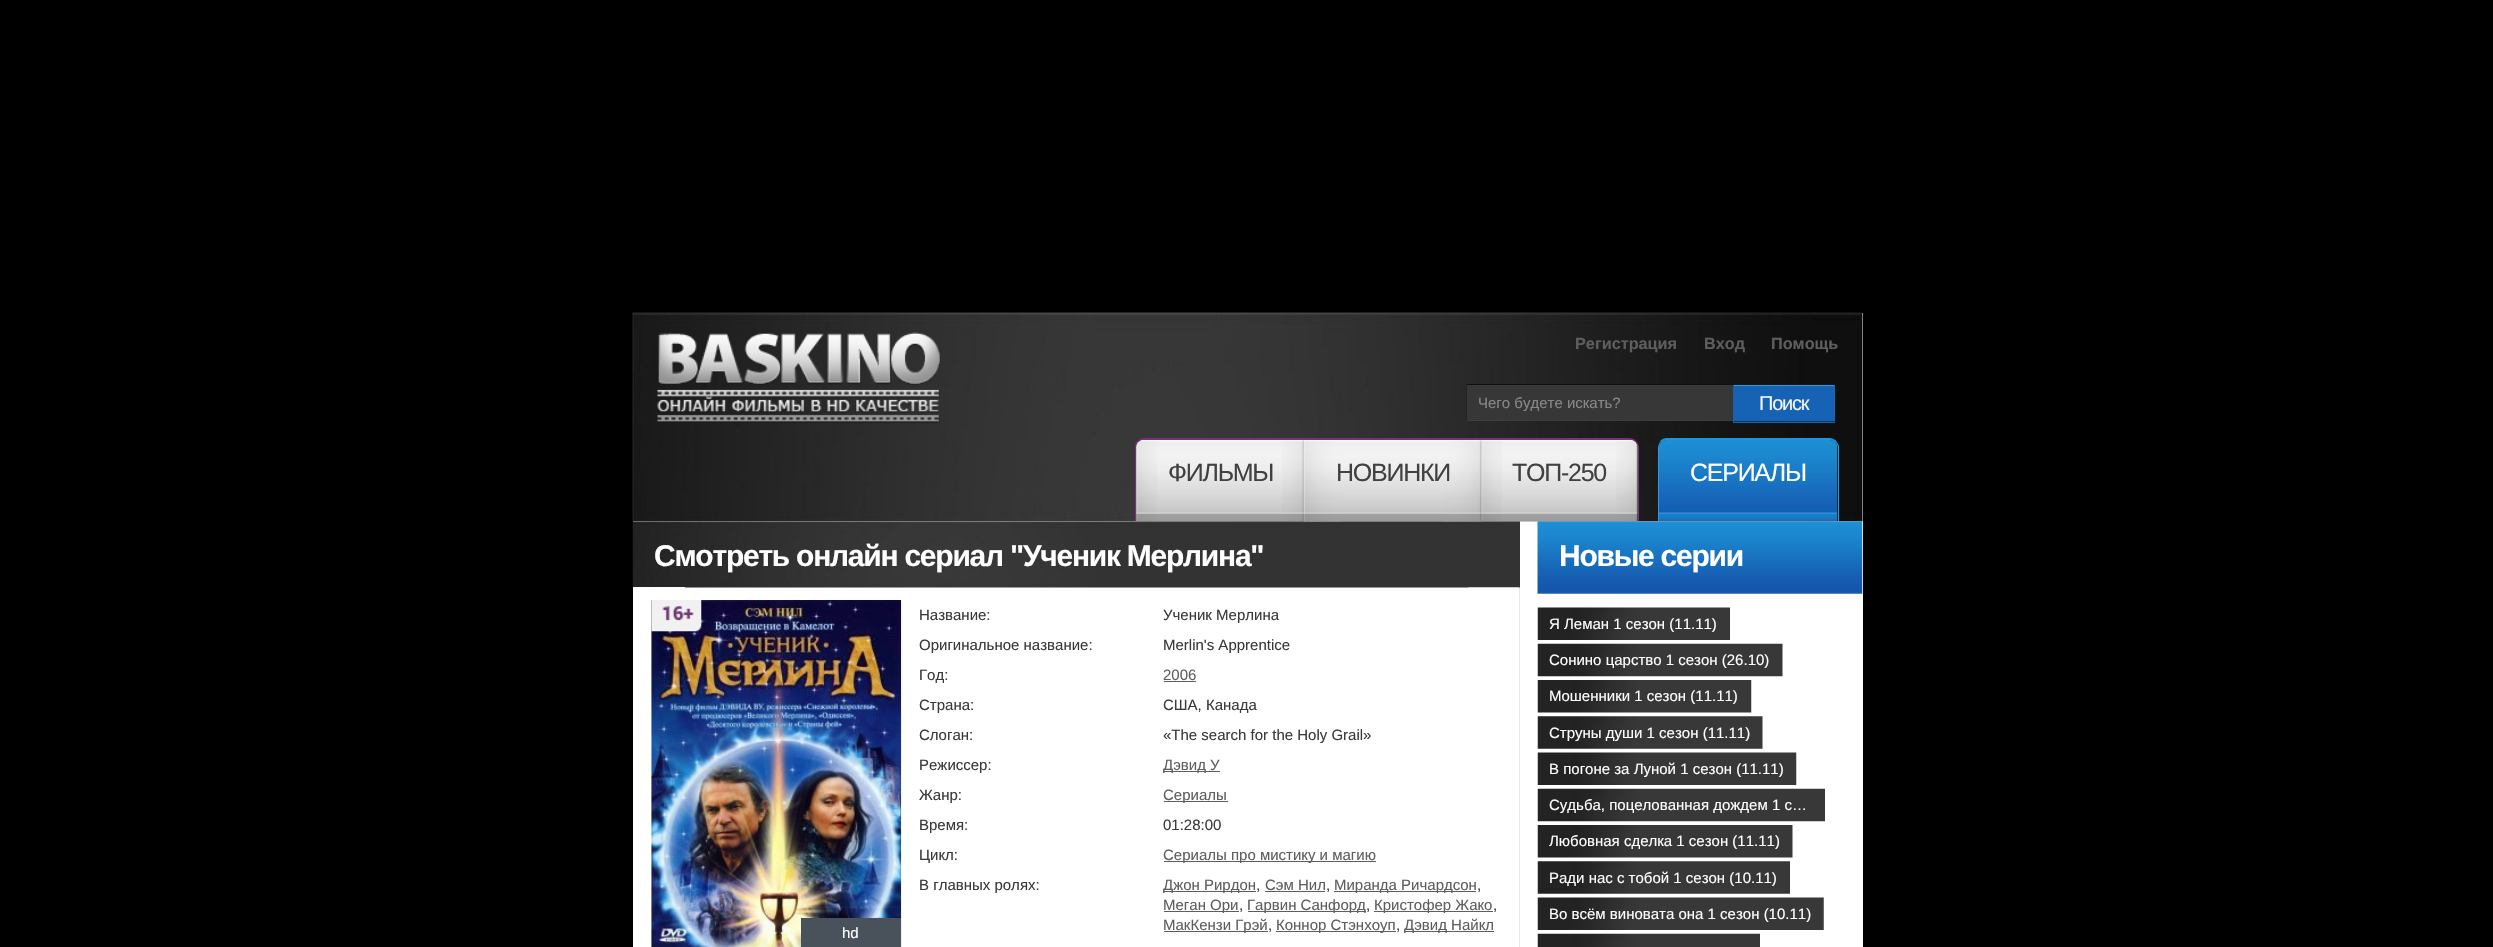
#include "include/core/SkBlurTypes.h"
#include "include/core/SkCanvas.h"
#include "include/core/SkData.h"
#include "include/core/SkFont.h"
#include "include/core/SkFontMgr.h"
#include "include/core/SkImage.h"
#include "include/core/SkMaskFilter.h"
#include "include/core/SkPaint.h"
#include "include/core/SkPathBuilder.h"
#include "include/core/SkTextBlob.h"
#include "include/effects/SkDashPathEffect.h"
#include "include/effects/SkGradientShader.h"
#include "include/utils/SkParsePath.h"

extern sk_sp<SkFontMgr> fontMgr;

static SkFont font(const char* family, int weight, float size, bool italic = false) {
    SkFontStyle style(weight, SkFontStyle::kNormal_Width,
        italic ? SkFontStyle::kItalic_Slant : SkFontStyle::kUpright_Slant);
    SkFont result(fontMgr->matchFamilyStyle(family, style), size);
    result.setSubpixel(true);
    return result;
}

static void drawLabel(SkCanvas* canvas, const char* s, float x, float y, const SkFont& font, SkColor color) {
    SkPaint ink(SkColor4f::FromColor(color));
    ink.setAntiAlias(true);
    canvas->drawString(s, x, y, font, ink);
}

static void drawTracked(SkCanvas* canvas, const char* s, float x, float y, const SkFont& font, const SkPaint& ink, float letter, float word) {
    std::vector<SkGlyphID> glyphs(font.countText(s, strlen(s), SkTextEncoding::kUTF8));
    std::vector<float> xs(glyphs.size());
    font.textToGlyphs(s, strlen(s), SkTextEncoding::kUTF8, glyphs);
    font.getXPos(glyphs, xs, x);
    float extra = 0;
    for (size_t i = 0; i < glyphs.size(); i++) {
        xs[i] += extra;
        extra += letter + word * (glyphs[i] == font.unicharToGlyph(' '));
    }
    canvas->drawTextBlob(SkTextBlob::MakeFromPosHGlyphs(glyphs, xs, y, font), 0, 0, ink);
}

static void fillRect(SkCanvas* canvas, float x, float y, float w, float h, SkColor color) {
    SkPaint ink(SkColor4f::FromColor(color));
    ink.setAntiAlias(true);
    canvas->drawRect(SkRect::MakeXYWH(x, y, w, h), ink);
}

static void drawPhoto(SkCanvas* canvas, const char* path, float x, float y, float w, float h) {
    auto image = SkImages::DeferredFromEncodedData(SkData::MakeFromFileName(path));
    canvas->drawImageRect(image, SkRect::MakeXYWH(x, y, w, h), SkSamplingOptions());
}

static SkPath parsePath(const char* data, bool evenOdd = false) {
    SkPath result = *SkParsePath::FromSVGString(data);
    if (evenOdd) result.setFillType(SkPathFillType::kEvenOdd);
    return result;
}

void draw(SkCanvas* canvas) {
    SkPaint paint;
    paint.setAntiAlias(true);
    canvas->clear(0xFF000000);
    fillRect(canvas, 633, 313, 1230, 634, 0xFFFFFFFF);
    drawPhoto(canvas, "assets/img13.png", 632, 521, 888, 67);
    drawPhoto(canvas, "assets/img17.png", 1537, 521, 326, 73);
    drawPhoto(canvas, "assets/img1.png", 632, 312, 1231, 210);
    drawPhoto(canvas, "assets/img2.png", 657, 332, 283, 92);
    SkFont font1 = font("Liberation Sans", 700, 16.25f);
    drawLabel(canvas, "Регистрация", 1575, 349, font1, 0xFF5E5E5E);
    drawLabel(canvas, "Вход", 1704, 349, font1, 0xFF5E5E5E);
    drawLabel(canvas, "Помощь", 1771, 349, font1, 0xFF5E5E5E);
    fillRect(canvas, 1467, 385, 266, 35, 0xFF373737);
    fillRect(canvas, 1466, 384, 292, 1, 0xFF101010);
    fillRect(canvas, 1466, 420, 267, 1, 0xFF3D3D3D);
    fillRect(canvas, 1466, 384, 1, 37, 0xFF232323);
    SkFont font2 = font("Liberation Sans", 400, 15);
    drawLabel(canvas, "Чего будете искать?", 1478, 408, font2, 0xFF888888);
    fillRect(canvas, 1734, 386, 100, 37, 0xFF1662B5);
    fillRect(canvas, 1733, 385, 102, 1, 0xFF22A1DA);
    fillRect(canvas, 1834, 385, 1, 38, 0xFF1769B4);
    fillRect(canvas, 1733, 421, 102, 1, 0xFF0C3564);
    fillRect(canvas, 1733, 385, 1, 38, 0xFF155FAD);
    SkFont font3 = font("Liberation Sans", 400, 20);
    paint.setColor(0xFFF4F4F4);
    drawTracked(canvas, "Поиск", 1759, 410, font3, paint, -1.25f, 0);
    paint.setColor(0xFF802C81);
    canvas->drawPath(parsePath("M1145 438H1304V521H1135V448C1135 442 1139 438 1145 438ZM1145 440H1304V521H1136V448C1136 443 1140 440 1145 440Z", true), paint);
    drawPhoto(canvas, "assets/img3.png", 1136, 440, 168, 81);
    drawPhoto(canvas, "assets/img4.png", 1136, 440, 21, 81);
    drawPhoto(canvas, "assets/img5.png", 1282, 440, 22, 81);
    SkFont font4 = font("Liberation Sans", 400, 25);
    paint.setColor(0xFF414141);
    drawTracked(canvas, "ФИЛЬМЫ", 1168, 481, font4, paint, -1.25f, 0);
    fillRect(canvas, 1304, 438, 177, 2, 0xFF802C81);
    drawPhoto(canvas, "assets/img6.png", 1303, 440, 179, 82);
    drawPhoto(canvas, "assets/img7.png", 1303, 440, 38, 82);
    drawPhoto(canvas, "assets/img8.png", 1444, 440, 38, 82);
    drawTracked(canvas, "НОВИНКИ", 1336, 481, font4, paint, -1.25f, 0);
    paint.setColor(0xFF802C81);
    canvas->drawPath(parsePath("M1481 438H1629C1634 438 1639 442 1639 448V521H1481ZM1481 440H1629C1634 440 1638 443 1638 448V521H1481Z", true), paint);
    drawPhoto(canvas, "assets/img9.png", 1481, 440, 157, 81);
    drawPhoto(canvas, "assets/img10.png", 1481, 440, 21, 81);
    drawPhoto(canvas, "assets/img11.png", 1616, 440, 22, 81);
    paint.setColor(0xFF414141);
    drawTracked(canvas, "ТОП-250", 1512, 481, font4, paint, -1.25f, 0);
    paint.setColor(0xFF2193DA);
    canvas->drawPath(parsePath("M1668 438H1829C1832 438 1835 439 1837 442L1836 443C1834 441 1832 440 1829 440H1668C1665 440 1662 441 1660 443V442C1661 439 1664 438 1668 438Z"), paint);
    paint.setColor(0xFF2F9AE1);
    canvas->drawPath(parsePath("M1837 442L1839 446V521H1838V448C1838 446 1837 444 1836 443Z"), paint);
    canvas->drawPath(parsePath("M1660 442V443C1660 445 1659 446 1659 448V521H1658V448C1658 446 1659 444 1660 442Z"), paint);
    drawPhoto(canvas, "assets/img12.png", 1659, 440, 179, 82);
    paint.setColor(0xFFFFFFFF);
    drawTracked(canvas, "СЕРИАЛЫ", 1690, 481, font4, paint, -1.25f, 0);
    SkFont font5 = font("Liberation Sans", 700, 30);
    drawTracked(canvas, "Смотреть онлайн сериал \"Ученик Мерлина\"", 654, 566, font5, paint, -1.25f, 0);
    fillRect(canvas, 1519, 588, 1, 359, 0xFFE9E8E8);
    drawPhoto(canvas, "assets/img14.png", 1468, 587, 51, 1);
    fillRect(canvas, 633, 587, 52, 1, 0xFFFEFEFE);
    drawPhoto(canvas, "assets/img15.png", 651, 600, 251, 347);
    drawPhoto(canvas, "assets/img16.png", 651, 600, 51, 32);
    fillRect(canvas, 801, 918, 100, 29, 0xFF49515B);
    drawLabel(canvas, "hd", 842, 938, font2, 0xFFFFFFFF);
    drawLabel(canvas, "Название:", 919, 620, font2, 0xFF393939);
    drawLabel(canvas, "Ученик Мерлина", 1163, 620, font2, 0xFF393939);
    drawLabel(canvas, "Оригинальное название:", 919, 650, font2, 0xFF393939);
    drawLabel(canvas, "Merlin's Apprentice", 1163, 650, font2, 0xFF393939);
    drawLabel(canvas, "Год:", 919, 680, font2, 0xFF393939);
    drawLabel(canvas, "2006", 1163, 680, font2, 0xFF5E5E5E);
    fillRect(canvas, 1164, 681, 32, 1, 0xFF5E5E5E);
    drawLabel(canvas, "Страна:", 919, 710, font2, 0xFF393939);
    drawLabel(canvas, "США, Канада", 1163, 710, font2, 0xFF393939);
    drawLabel(canvas, "Слоган:", 919, 740, font2, 0xFF393939);
    drawLabel(canvas, "«The search for the Holy Grail»", 1163, 740, font2, 0xFF393939);
    drawLabel(canvas, "Режиссер:", 919, 770, font2, 0xFF393939);
    fillRect(canvas, 1164, 771, 56, 1, 0xFF5E5E5E);
    drawLabel(canvas, "Дэвид У", 1163, 770, font2, 0xFF5E5E5E);
    drawLabel(canvas, "Жанр:", 919, 800, font2, 0xFF393939);
    fillRect(canvas, 1164, 801, 64, 1, 0xFF5E5E5E);
    drawLabel(canvas, "Сериалы", 1163, 800, font2, 0xFF5E5E5E);
    drawLabel(canvas, "Время:", 919, 830, font2, 0xFF393939);
    drawLabel(canvas, "01:28:00", 1163, 830, font2, 0xFF393939);
    drawLabel(canvas, "Цикл:", 919, 860, font2, 0xFF393939);
    fillRect(canvas, 1164, 861, 212, 1, 0xFF5E5E5E);
    drawLabel(canvas, "Сериалы про мистику и магию", 1163, 860, font2, 0xFF5E5E5E);
    drawLabel(canvas, "В главных ролях:", 919, 890, font2, 0xFF393939);
    fillRect(canvas, 1164, 891, 92, 1, 0xFF5E5E5E);
    drawLabel(canvas, "Джон Рирдон", 1163, 890, font2, 0xFF5E5E5E);
    drawLabel(canvas, ",", 1256, 890, font2, 0xFF393939);
    drawLabel(canvas, "Сэм Нил", 1265, 890, font2, 0xFF5E5E5E);
    fillRect(canvas, 1265, 891, 60, 1, 0xFF5E5E5E);
    drawLabel(canvas, ",", 1326, 890, font2, 0xFF393939);
    fillRect(canvas, 1334, 891, 142, 1, 0xFF5E5E5E);
    drawLabel(canvas, "Миранда Ричардсон", 1334, 890, font2, 0xFF5E5E5E);
    drawLabel(canvas, ",", 1477, 890, font2, 0xFF393939);
    fillRect(canvas, 1164, 911, 75, 1, 0xFF5E5E5E);
    drawLabel(canvas, "Меган Ори", 1163, 910, font2, 0xFF5E5E5E);
    drawLabel(canvas, ",", 1239, 910, font2, 0xFF393939);
    fillRect(canvas, 1248, 911, 118, 1, 0xFF5E5E5E);
    drawLabel(canvas, "Гарвин Санфорд", 1247, 910, font2, 0xFF5E5E5E);
    drawLabel(canvas, ",", 1366, 910, font2, 0xFF393939);
    fillRect(canvas, 1374, 911, 119, 1, 0xFF5E5E5E);
    drawLabel(canvas, "Кристофер Жако", 1374, 910, font2, 0xFF5E5E5E);
    drawLabel(canvas, ",", 1493, 910, font2, 0xFF393939);
    fillRect(canvas, 1164, 931, 104, 1, 0xFF5E5E5E);
    drawLabel(canvas, "МакКензи Грэй", 1163, 930, font2, 0xFF5E5E5E);
    drawLabel(canvas, ",", 1268, 930, font2, 0xFF393939);
    fillRect(canvas, 1276, 931, 120, 1, 0xFF5E5E5E);
    drawLabel(canvas, "Коннор Стэнхоуп", 1276, 930, font2, 0xFF5E5E5E);
    drawLabel(canvas, ",", 1396, 930, font2, 0xFF393939);
    fillRect(canvas, 1404, 931, 90, 1, 0xFF5E5E5E);
    drawLabel(canvas, "Дэвид Найкл", 1404, 930, font2, 0xFF5E5E5E);
    drawTracked(canvas, "Новые серии", 1559, 566, font5, paint, -1.25f, 0);
    drawPhoto(canvas, "assets/img18.png", 1537, 607, 193, 33);
    drawLabel(canvas, "Я Леман 1 сезон (11.11)", 1549, 629, font2, 0xFFFFFFFF);
    drawPhoto(canvas, "assets/img19.png", 1537, 643, 246, 34);
    drawLabel(canvas, "Сонино царство 1 сезон (26.10)", 1549, 665, font2, 0xFFFFFFFF);
    drawPhoto(canvas, "assets/img20.png", 1537, 680, 215, 33);
    drawLabel(canvas, "Мошенники 1 сезон (11.11)", 1549, 701, font2, 0xFFFFFFFF);
    drawPhoto(canvas, "assets/img21.png", 1537, 716, 226, 33);
    drawLabel(canvas, "Струны души 1 сезон (11.11)", 1549, 738, font2, 0xFFFFFFFF);
    drawPhoto(canvas, "assets/img22.png", 1537, 752, 260, 33);
    drawLabel(canvas, "В погоне за Луной 1 сезон (11.11)", 1549, 774, font2, 0xFFFFFFFF);
    drawPhoto(canvas, "assets/img23.png", 1537, 788, 288, 34);
    drawLabel(canvas, "Судьба, поцелованная дождем 1 с…", 1549, 810, font2, 0xFFFFFFFF);
    drawPhoto(canvas, "assets/img24.png", 1537, 825, 256, 33);
    drawLabel(canvas, "Любовная сделка 1 сезон (11.11)", 1549, 846, font2, 0xFFFFFFFF);
    drawPhoto(canvas, "assets/img25.png", 1537, 861, 253, 33);
    drawLabel(canvas, "Ради нас с тобой 1 сезон (10.11)", 1549, 883, font2, 0xFFFFFFFF);
    drawPhoto(canvas, "assets/img26.png", 1537, 897, 287, 33);
    drawLabel(canvas, "Во всём виновата она 1 сезон (10.11)", 1549, 919, font2, 0xFFFFFFFF);
    drawPhoto(canvas, "assets/img27.png", 1537, 933, 223, 14);
}
